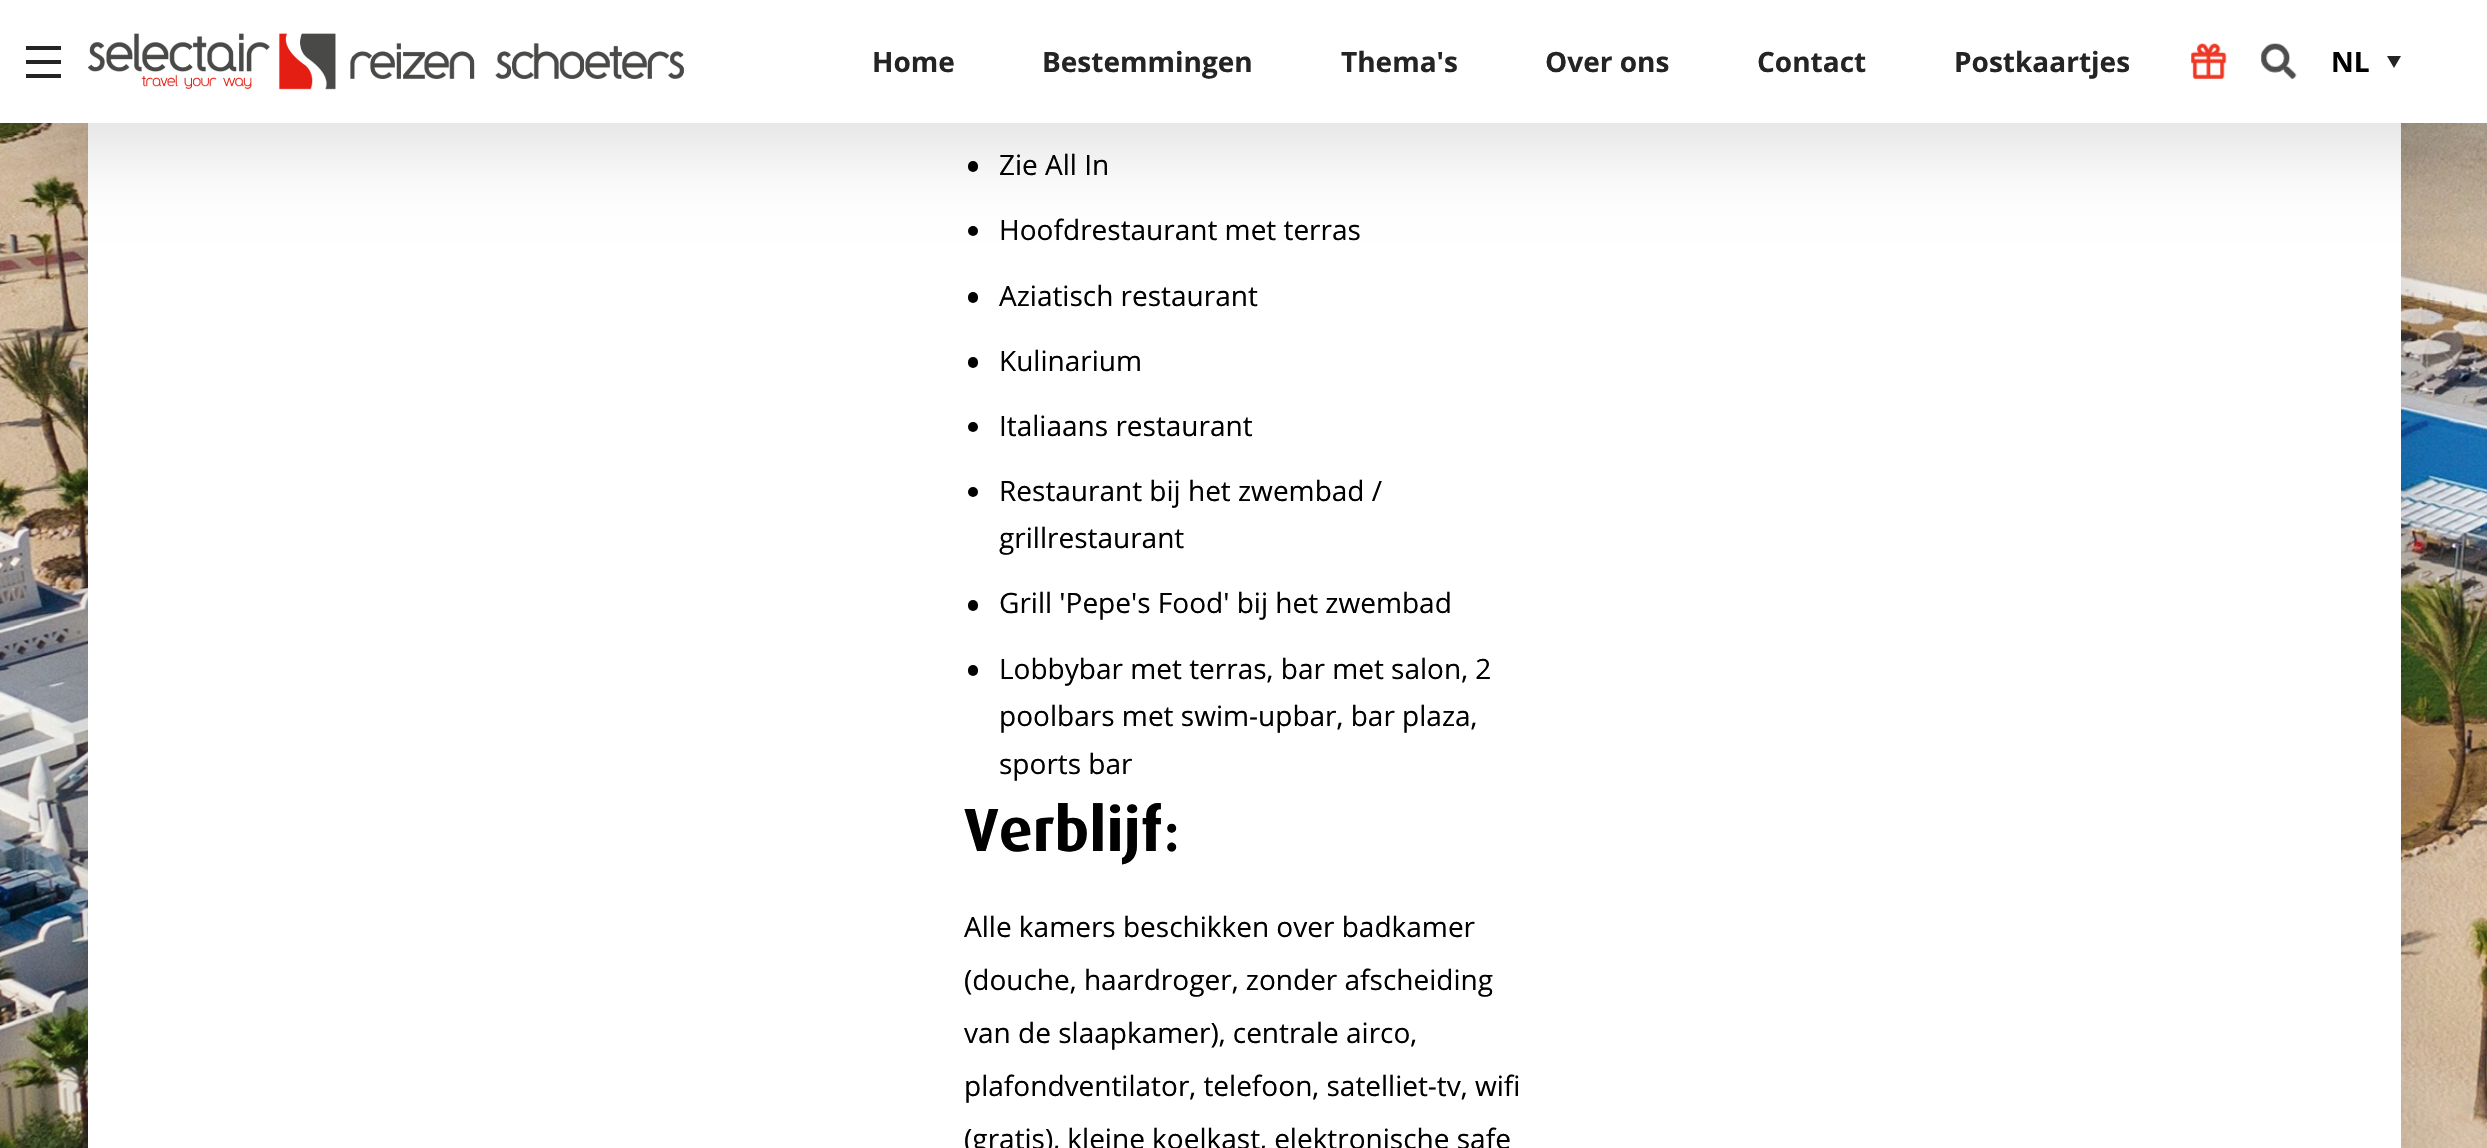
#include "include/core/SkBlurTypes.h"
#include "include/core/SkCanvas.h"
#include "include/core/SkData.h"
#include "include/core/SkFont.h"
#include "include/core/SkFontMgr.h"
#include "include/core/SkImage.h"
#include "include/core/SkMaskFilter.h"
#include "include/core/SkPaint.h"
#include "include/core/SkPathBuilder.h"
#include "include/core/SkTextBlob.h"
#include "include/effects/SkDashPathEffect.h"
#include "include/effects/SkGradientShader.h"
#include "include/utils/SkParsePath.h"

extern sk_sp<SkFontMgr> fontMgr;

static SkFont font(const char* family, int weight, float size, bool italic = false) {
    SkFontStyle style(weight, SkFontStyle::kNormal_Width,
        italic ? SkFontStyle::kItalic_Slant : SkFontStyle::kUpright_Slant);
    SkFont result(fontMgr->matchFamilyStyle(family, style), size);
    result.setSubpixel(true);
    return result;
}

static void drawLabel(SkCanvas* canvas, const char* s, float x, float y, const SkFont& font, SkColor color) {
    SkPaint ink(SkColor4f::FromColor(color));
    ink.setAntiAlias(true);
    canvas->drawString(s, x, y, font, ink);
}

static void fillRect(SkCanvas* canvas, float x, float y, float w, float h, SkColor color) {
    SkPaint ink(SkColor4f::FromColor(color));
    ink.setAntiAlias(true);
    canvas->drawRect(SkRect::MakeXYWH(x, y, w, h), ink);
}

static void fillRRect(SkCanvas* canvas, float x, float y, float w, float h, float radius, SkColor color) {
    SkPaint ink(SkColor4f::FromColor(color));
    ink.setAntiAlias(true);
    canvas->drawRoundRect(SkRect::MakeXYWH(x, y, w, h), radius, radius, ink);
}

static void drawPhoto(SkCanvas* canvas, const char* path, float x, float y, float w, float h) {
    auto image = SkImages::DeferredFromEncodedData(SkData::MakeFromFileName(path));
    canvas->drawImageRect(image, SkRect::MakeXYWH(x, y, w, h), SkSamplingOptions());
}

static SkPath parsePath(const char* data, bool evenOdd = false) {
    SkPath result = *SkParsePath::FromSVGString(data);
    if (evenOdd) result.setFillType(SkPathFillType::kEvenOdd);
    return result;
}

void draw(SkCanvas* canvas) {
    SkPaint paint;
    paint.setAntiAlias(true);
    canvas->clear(0xFFFFFFFF);
    drawPhoto(canvas, "assets/img4.png", 0, 123, 2487, 1025);
    paint.setColor(0x1F000000);
    paint.setMaskFilter(SkMaskFilter::MakeBlur(kNormal_SkBlurStyle, 39.5f));
    canvas->drawRoundRect(SkRect::MakeXYWH(88, -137, 2313, 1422), 18, 18, paint);
    paint.setMaskFilter(nullptr);
    fillRect(canvas, 88, 123, 2313, 1025, 0xFFFFFFFF);
    fillRRect(canvas, 968, 161, 10, 11, 5, 0xFF000000);
    paint.setColor(0xFF000000);
    canvas->drawCircle(973, 231, 5, paint);
    paint.setColor(0x1F000000);
    paint.setMaskFilter(SkMaskFilter::MakeBlur(kNormal_SkBlurStyle, 39.5f));
    canvas->drawRect(SkRect::MakeXYWH(0, 26, 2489, 123), paint);
    paint.setMaskFilter(nullptr);
    fillRect(canvas, 0, 0, 2487, 123, 0xFFFFFFFF);
    fillRect(canvas, 26, 60, 35, 4, 0xFF242424);
    fillRect(canvas, 26, 46, 35, 4, 0xFF242424);
    fillRect(canvas, 26, 74, 35, 4, 0xFF242424);
    drawPhoto(canvas, "assets/img1.png", 88, 33, 596, 57);
    SkFont font1 = font("Open Sans", 700, 28);
    drawLabel(canvas, "Home", 872, 72, font1, 0xFF242424);
    drawLabel(canvas, "Bestemmingen", 1042, 72, font1, 0xFF242424);
    drawLabel(canvas, "Thema's", 1341, 72, font1, 0xFF242424);
    drawLabel(canvas, "Over ons", 1545, 72, font1, 0xFF242424);
    drawLabel(canvas, "Contact", 1757, 72, font1, 0xFF242424);
    drawLabel(canvas, "Postkaartjes", 1954, 72, font1, 0xFF242424);
    drawPhoto(canvas, "assets/img2.png", 2191, 43, 36, 36);
    drawPhoto(canvas, "assets/img3.png", 2261, 43, 36, 36);
    drawLabel(canvas, "NL", 2331, 72, font1, 0xFF000000);
    paint.setColor(0xFF242424);
    canvas->drawPath(parsePath("M2387 56H2401L2394 68Z"), paint);
    SkFont font2 = font("Open Sans", 400, 28);
    drawLabel(canvas, "Zie All In", 999, 175, font2, 0xFF000000);
    drawLabel(canvas, "Hoofdrestaurant met terras", 999, 240, font2, 0xFF000000);
    fillRRect(canvas, 968, 292, 10, 11, 5, 0xFF000000);
    drawLabel(canvas, "Aziatisch restaurant", 999, 306, font2, 0xFF000000);
    fillRRect(canvas, 968, 357, 10, 11, 5, 0xFF000000);
    drawLabel(canvas, "Kulinarium", 999, 371, font2, 0xFF000000);
    paint.setColor(0xFF000000);
    canvas->drawCircle(973, 427, 5, paint);
    drawLabel(canvas, "Italiaans restaurant", 999, 436, font2, 0xFF000000);
    canvas->drawCircle(973, 492, 5, paint);
    drawLabel(canvas, "Restaurant bij het zwembad /", 999, 501, font2, 0xFF000000);
    drawLabel(canvas, "grillrestaurant", 999, 548, font2, 0xFF000000);
    fillRRect(canvas, 968, 600, 10, 11, 5, 0xFF000000);
    drawLabel(canvas, "Grill 'Pepe's Food' bij het zwembad", 999, 613, font2, 0xFF000000);
    fillRRect(canvas, 968, 665, 10, 11, 5, 0xFF000000);
    drawLabel(canvas, "Lobbybar met terras, bar met salon, 2", 999, 679, font2, 0xFF000000);
    drawLabel(canvas, "poolbars met swim-upbar, bar plaza,", 999, 726, font2, 0xFF000000);
    drawLabel(canvas, "sports bar", 999, 774, font2, 0xFF000000);
    SkFont font3 = font("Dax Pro", 700, 61);
    drawLabel(canvas, "Verblijf", 964, 851, font3, 0xFF000000);
    SkFont font4 = font("Dax Pro", 500, 61);
    drawLabel(canvas, ":", 1163, 851, font4, 0xFF000000);
    drawLabel(canvas, "Alle kamers beschikken over badkamer", 964, 937, font2, 0xFF000000);
    drawLabel(canvas, "(douche, haardroger, zonder afscheiding", 964, 990, font2, 0xFF000000);
    drawLabel(canvas, "van de slaapkamer), centrale airco,", 964, 1043, font2, 0xFF000000);
    drawLabel(canvas, "plafondventilator, telefoon, satelliet-tv, wifi", 964, 1096, font2, 0xFF000000);
    drawLabel(canvas, "(gratis), kleine koelkast, elektronische safe", 964, 1149, font2, 0xFF000000);
}
